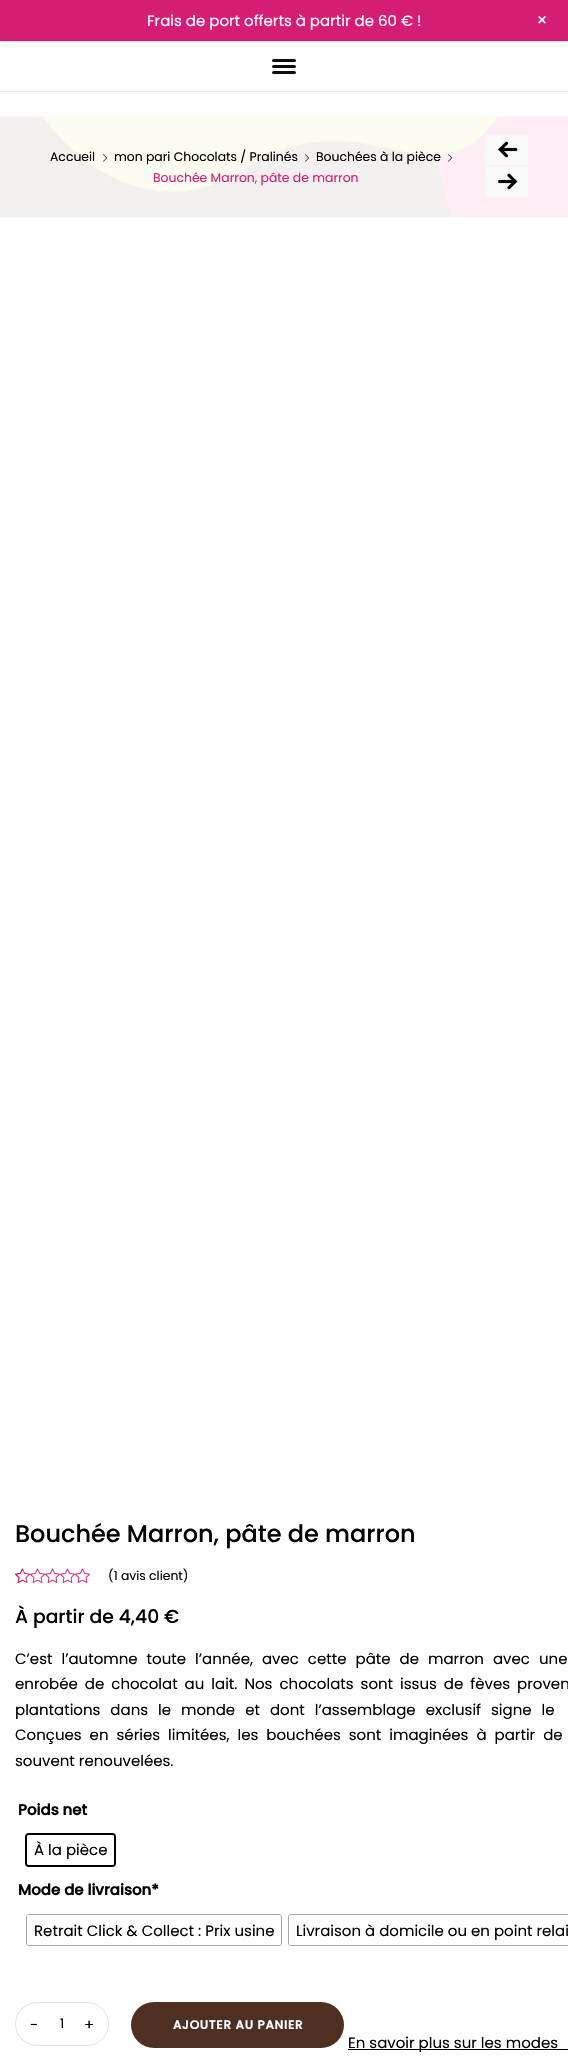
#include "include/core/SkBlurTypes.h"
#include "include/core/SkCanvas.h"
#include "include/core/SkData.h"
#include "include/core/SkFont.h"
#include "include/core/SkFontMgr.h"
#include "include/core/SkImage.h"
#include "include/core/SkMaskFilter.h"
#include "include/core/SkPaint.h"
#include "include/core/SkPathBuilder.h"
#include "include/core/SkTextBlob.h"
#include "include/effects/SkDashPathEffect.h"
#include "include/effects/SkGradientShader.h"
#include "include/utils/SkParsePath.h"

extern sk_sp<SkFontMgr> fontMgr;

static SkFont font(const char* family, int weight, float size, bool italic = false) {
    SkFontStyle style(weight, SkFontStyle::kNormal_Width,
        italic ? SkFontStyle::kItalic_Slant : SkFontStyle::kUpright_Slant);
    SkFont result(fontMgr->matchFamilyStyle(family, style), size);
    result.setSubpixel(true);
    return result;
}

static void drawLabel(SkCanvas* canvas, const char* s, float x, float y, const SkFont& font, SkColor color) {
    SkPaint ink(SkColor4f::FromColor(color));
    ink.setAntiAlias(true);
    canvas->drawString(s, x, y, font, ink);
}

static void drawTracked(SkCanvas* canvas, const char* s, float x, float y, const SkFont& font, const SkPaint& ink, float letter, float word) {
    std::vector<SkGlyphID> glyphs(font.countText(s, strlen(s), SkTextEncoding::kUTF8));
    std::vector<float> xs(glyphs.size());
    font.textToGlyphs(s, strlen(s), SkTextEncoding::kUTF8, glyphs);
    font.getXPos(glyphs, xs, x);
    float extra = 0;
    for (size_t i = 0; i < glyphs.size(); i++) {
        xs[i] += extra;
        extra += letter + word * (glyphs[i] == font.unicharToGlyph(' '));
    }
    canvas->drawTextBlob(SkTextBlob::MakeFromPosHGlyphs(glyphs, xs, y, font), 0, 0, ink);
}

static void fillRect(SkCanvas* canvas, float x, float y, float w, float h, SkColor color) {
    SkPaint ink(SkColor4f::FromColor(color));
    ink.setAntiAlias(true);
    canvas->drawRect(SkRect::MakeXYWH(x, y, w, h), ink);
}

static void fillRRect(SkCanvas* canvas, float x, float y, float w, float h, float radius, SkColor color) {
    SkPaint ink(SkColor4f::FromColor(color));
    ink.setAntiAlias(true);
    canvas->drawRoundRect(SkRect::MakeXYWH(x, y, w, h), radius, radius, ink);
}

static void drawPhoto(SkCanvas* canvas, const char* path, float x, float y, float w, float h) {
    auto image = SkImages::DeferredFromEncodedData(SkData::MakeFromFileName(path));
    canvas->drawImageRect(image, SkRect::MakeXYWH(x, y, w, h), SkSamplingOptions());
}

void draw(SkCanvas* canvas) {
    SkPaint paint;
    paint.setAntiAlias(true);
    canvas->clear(0xFFFFFFFF);
    fillRect(canvas, 0, 41, 568, 1, 0xFFEBEBEB);
    paint.setColor(0x0D000000);
    paint.setMaskFilter(SkMaskFilter::MakeBlur(kNormal_SkBlurStyle, 2));
    canvas->drawRect(SkRect::MakeXYWH(0, 3, 568, 41), paint);
    paint.setMaskFilter(nullptr);
    fillRect(canvas, 0, 0, 568, 41, 0xFFD61D76);
    SkFont font1 = font("Poppins", 400, 15);
    drawLabel(canvas, "Frais de port offerts à partir de 60 € !", 147, 26, font1, 0xFFFFFFFF);
    SkFont font2 = font("Poppins", 400, 18);
    canvas->save();
    canvas->rotate(45, 533, 20);
    drawLabel(canvas, "+", 533, 20, font2, 0xFFFFFFFF);
    canvas->restore();
    fillRect(canvas, 0, 91, 568, 1, 0xFFEBEBEB);
    fillRRect(canvas, 272, 59, 24, 3, 1.5f, 0xFF0D0D0D);
    fillRRect(canvas, 272, 65, 24, 3, 1.5f, 0xFF0D0D0D);
    fillRRect(canvas, 272, 71, 24, 3, 1.5f, 0xFF0D0D0D);
    drawPhoto(canvas, "assets/img1.png", 0, 116, 568, 102);
    SkFont font3 = font("Poppins", 400, 12.4f);
    drawLabel(canvas, "Accueil", 50, 161, font3, 0xFF000000);
    drawPhoto(canvas, "assets/img2.png", 103, 154, 4, 8);
    drawLabel(canvas, "mon pari Chocolats / Pralinés", 114, 161, font3, 0xFF000000);
    drawPhoto(canvas, "assets/img3.png", 305, 154, 4, 8);
    drawLabel(canvas, "Bouchées à la pièce", 316, 161, font3, 0xFF000000);
    drawPhoto(canvas, "assets/img4.png", 448, 154, 4, 8);
    drawLabel(canvas, "Bouchée Marron, pâte de marron", 153, 182, font3, 0xFFD61D76);
    fillRect(canvas, 486, 135, 42, 30, 0xFFF8FAFA);
    drawPhoto(canvas, "assets/img5.png", 498, 141, 20, 17);
    fillRect(canvas, 486, 167, 42, 30, 0xFFF8FAFA);
    drawPhoto(canvas, "assets/img6.png", 498, 173, 20, 17);
    SkFont font4 = font("Poppins", 500, 24);
    drawLabel(canvas, "Bouchée Marron, pâte de marron", 15, 1542, font4, 0xFF000000);
    drawPhoto(canvas, "assets/img7.png", 15, 1568, 75, 15);
    drawPhoto(canvas, "assets/img8.png", 15, 1568, 75, 15);
    drawPhoto(canvas, "assets/img9.png", 15, 1568, 8, 15);
    drawLabel(canvas, "(1 avis client)", 108, 1580, font3, 0xFF000000);
    SkFont font5 = font("Poppins", 500, 18.75f);
    drawLabel(canvas, "À partir de 4,40 €", 15, 1623, font5, 0xFF000000);
    paint.setColor(0xFF000000);
    drawTracked(canvas, "C’est l’automne toute l’année, avec cette pâte de marron avec une", 15, 1664, font1, paint, 0, 5);
    drawTracked(canvas, "enrobée de chocolat au lait. Nos chocolats sont issus de fèves proven", 15, 1689, font1, paint, 0, 3);
    drawTracked(canvas, "plantations dans le monde et dont l’assemblage exclusif signe le", 15, 1715, font1, paint, 0, 6);
    drawTracked(canvas, "Conçues en séries limitées, les bouchées sont imaginées à partir de", 15, 1740, font1, paint, 0, 4);
    drawLabel(canvas, "souvent renouvelées.", 15, 1766, font1, 0xFF000000);
    SkFont font6 = font("Poppins", 700, 15);
    drawLabel(canvas, "Poids net", 18, 1815, font6, 0xFF000000);
    paint.setStroke(true);
    paint.setStrokeWidth(2);
    canvas->drawRoundRect(SkRect::MakeXYWH(26, 1834, 89, 32), 3, 3, paint);
    fillRRect(canvas, 27, 1835, 87, 30, 2, 0xFFFFFFFF);
    drawLabel(canvas, "À la pièce", 34, 1855, font1, 0xFF000000);
    drawLabel(canvas, "Mode de livraison*", 18, 1895, font6, 0xFF000000);
    paint.setStrokeWidth(1);
    paint.setColor(0xFFA8A8A8);
    canvas->drawRoundRect(SkRect::MakeXYWH(26.5f, 1914.5f, 255, 31), 2.5f, 2.5f, paint);
    fillRRect(canvas, 27, 1915, 254, 30, 2, 0xFFFFFFFF);
    drawLabel(canvas, "Retrait Click & Collect : Prix usine", 34, 1936, font1, 0xFF000000);
    canvas->drawRoundRect(SkRect::MakeXYWH(288.5f, 1914.5f, 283, 31), 2.5f, 2.5f, paint);
    fillRRect(canvas, 289, 1915, 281, 30, 2, 0xFFFFFFFF);
    drawLabel(canvas, "Livraison à domicile ou en point relai", 296, 1936, font1, 0xFF000000);
    paint.setColor(0xFFE1E1E1);
    canvas->drawRoundRect(SkRect::MakeXYWH(15.5f, 2002.5f, 93, 43), 21.5f, 21.5f, paint);
    SkFont font7 = font("Poppins", 400, 13);
    drawLabel(canvas, "1", 60, 2028, font7, 0xFF000000);
    drawLabel(canvas, "-", 30, 2030, font1, 0xFF000000);
    drawLabel(canvas, "+", 84, 2030, font1, 0xFF000000);
    fillRRect(canvas, 131, 2002, 213, 46, 23, 0xFF4E3022);
    SkFont font8 = font("Poppins", 700, 12);
    paint.setStroke(false);
    paint.setColor(0xFFFFFFFF);
    drawTracked(canvas, "AJOUTER AU PANIER", 173, 2029, font8, paint, 0.75f, 0);
    fillRect(canvas, 348, 2049, 220, 1, 0xFF000000);
    drawLabel(canvas, "En savoir plus sur les modes", 348, 2048, font1, 0xFF000000);
}
